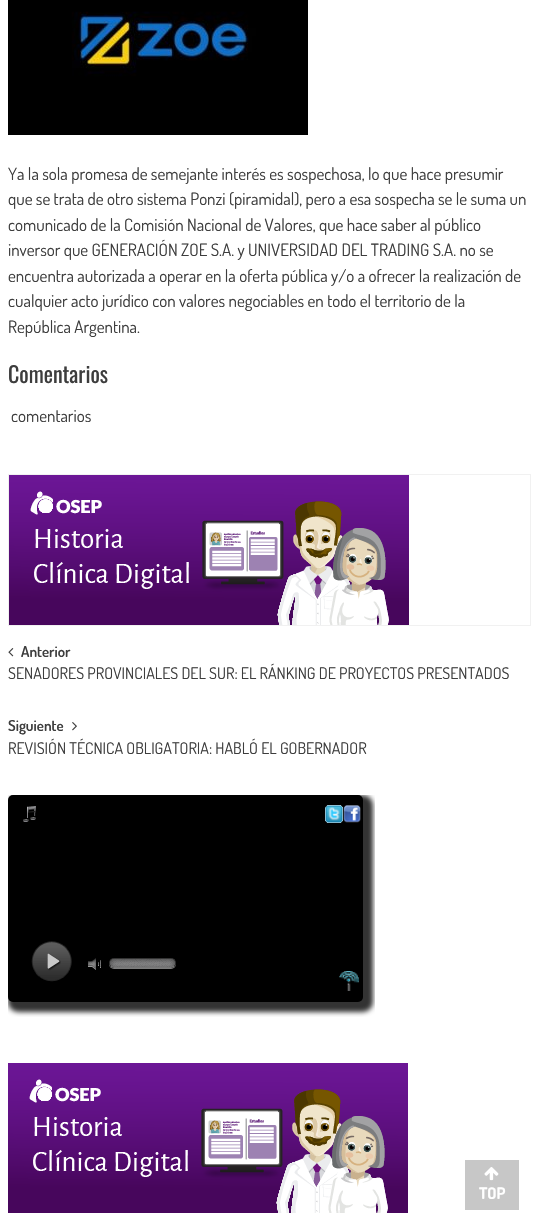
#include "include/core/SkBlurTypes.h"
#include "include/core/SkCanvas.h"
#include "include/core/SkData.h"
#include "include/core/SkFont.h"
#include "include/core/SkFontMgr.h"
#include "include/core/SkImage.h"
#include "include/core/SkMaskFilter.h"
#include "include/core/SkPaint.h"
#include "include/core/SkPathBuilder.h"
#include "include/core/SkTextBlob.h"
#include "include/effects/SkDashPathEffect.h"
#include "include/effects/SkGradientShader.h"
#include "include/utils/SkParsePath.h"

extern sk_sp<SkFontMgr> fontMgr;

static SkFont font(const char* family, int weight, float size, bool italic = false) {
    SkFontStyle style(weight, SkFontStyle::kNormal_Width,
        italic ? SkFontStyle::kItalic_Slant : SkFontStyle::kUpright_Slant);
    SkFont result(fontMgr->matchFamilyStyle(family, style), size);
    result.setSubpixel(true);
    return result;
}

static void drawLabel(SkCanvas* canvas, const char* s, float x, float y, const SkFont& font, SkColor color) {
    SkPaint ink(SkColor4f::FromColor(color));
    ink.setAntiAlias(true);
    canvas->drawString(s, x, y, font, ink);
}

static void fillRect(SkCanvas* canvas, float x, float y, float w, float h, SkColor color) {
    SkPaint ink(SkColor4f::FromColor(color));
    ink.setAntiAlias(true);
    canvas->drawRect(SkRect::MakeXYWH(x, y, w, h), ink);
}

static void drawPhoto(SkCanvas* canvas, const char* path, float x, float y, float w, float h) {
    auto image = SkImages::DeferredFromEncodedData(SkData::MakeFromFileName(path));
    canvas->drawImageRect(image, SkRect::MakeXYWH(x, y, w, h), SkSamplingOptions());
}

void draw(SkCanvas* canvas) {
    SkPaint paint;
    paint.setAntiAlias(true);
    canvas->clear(0xFFFFFFFF);
    drawPhoto(canvas, "assets/img1.png", 8, 0, 300, 135);
    SkFont font1 = font("Dosis", 400, 17);
    drawLabel(canvas, "Ya la sola promesa de semejante interés es sospechosa, lo que hace presumir", 8, 180, font1, 0xFF3D3D3D);
    drawLabel(canvas, "que se trata de otro sistema Ponzi (piramidal), pero a esa sospecha se le suma un", 8, 205, font1, 0xFF3D3D3D);
    drawLabel(canvas, "comunicado de la Comisión Nacional de Valores, que hace saber al público", 8, 231, font1, 0xFF3D3D3D);
    drawLabel(canvas, "inversor que GENERACIÓN ZOE S.A. y UNIVERSIDAD DEL TRADING S.A. no se", 8, 256, font1, 0xFF3D3D3D);
    drawLabel(canvas, "encuentra autorizada a operar en la oferta pública y/o a ofrecer la realización de", 8, 282, font1, 0xFF3D3D3D);
    drawLabel(canvas, "cualquier acto jurídico con valores negociables en todo el territorio de la", 8, 307, font1, 0xFF3D3D3D);
    drawLabel(canvas, "República Argentina.", 8, 333, font1, 0xFF3D3D3D);
    SkFont font2 = font("Oswald", 400, 22);
    drawLabel(canvas, "Comentarios", 8, 383, font2, 0xFF3D3D3D);
    drawLabel(canvas, "comentarios", 11, 422, font1, 0xFF3D3D3D);
    paint.setStroke(true);
    paint.setStrokeWidth(1);
    paint.setColor(0xFFF1F1F1);
    canvas->drawRect(SkRect::MakeXYWH(8.5f, 474.5f, 522, 151), paint);
    drawPhoto(canvas, "assets/img2.png", 9, 475, 400, 150);
    drawPhoto(canvas, "assets/img3.png", 8, 648, 6, 9);
    SkFont font3 = font("Dosis", 600, 15);
    drawLabel(canvas, "Anterior", 21, 657, font3, 0xFF3D3D3D);
    SkFont font4 = font("Dosis", 400, 16);
    drawLabel(canvas, "SENADORES PROVINCIALES DEL SUR: EL RÁNKING DE PROYECTOS PRESENTADOS", 8, 679, font4, 0xFF3D3D3D);
    drawLabel(canvas, "Siguiente", 8, 731, font3, 0xFF3D3D3D);
    drawPhoto(canvas, "assets/img4.png", 72, 722, 5, 9);
    drawLabel(canvas, "REVISIÓN TÉCNICA OBLIGATORIA: HABLÓ EL GOBERNADOR", 8, 754, font4, 0xFF3D3D3D);
    drawPhoto(canvas, "assets/img5.png", 8, 795, 367, 222);
    drawPhoto(canvas, "assets/img2.png", 8, 1063, 400, 150);
    fillRect(canvas, 465, 1160, 54, 50, 0xFFC7C7C7);
    drawPhoto(canvas, "assets/img6.png", 484, 1167, 15, 14);
    SkFont font5 = font("Dosis", 700, 16);
    drawLabel(canvas, "TOP", 479, 1199, font5, 0xFFFFFFFF);
}
